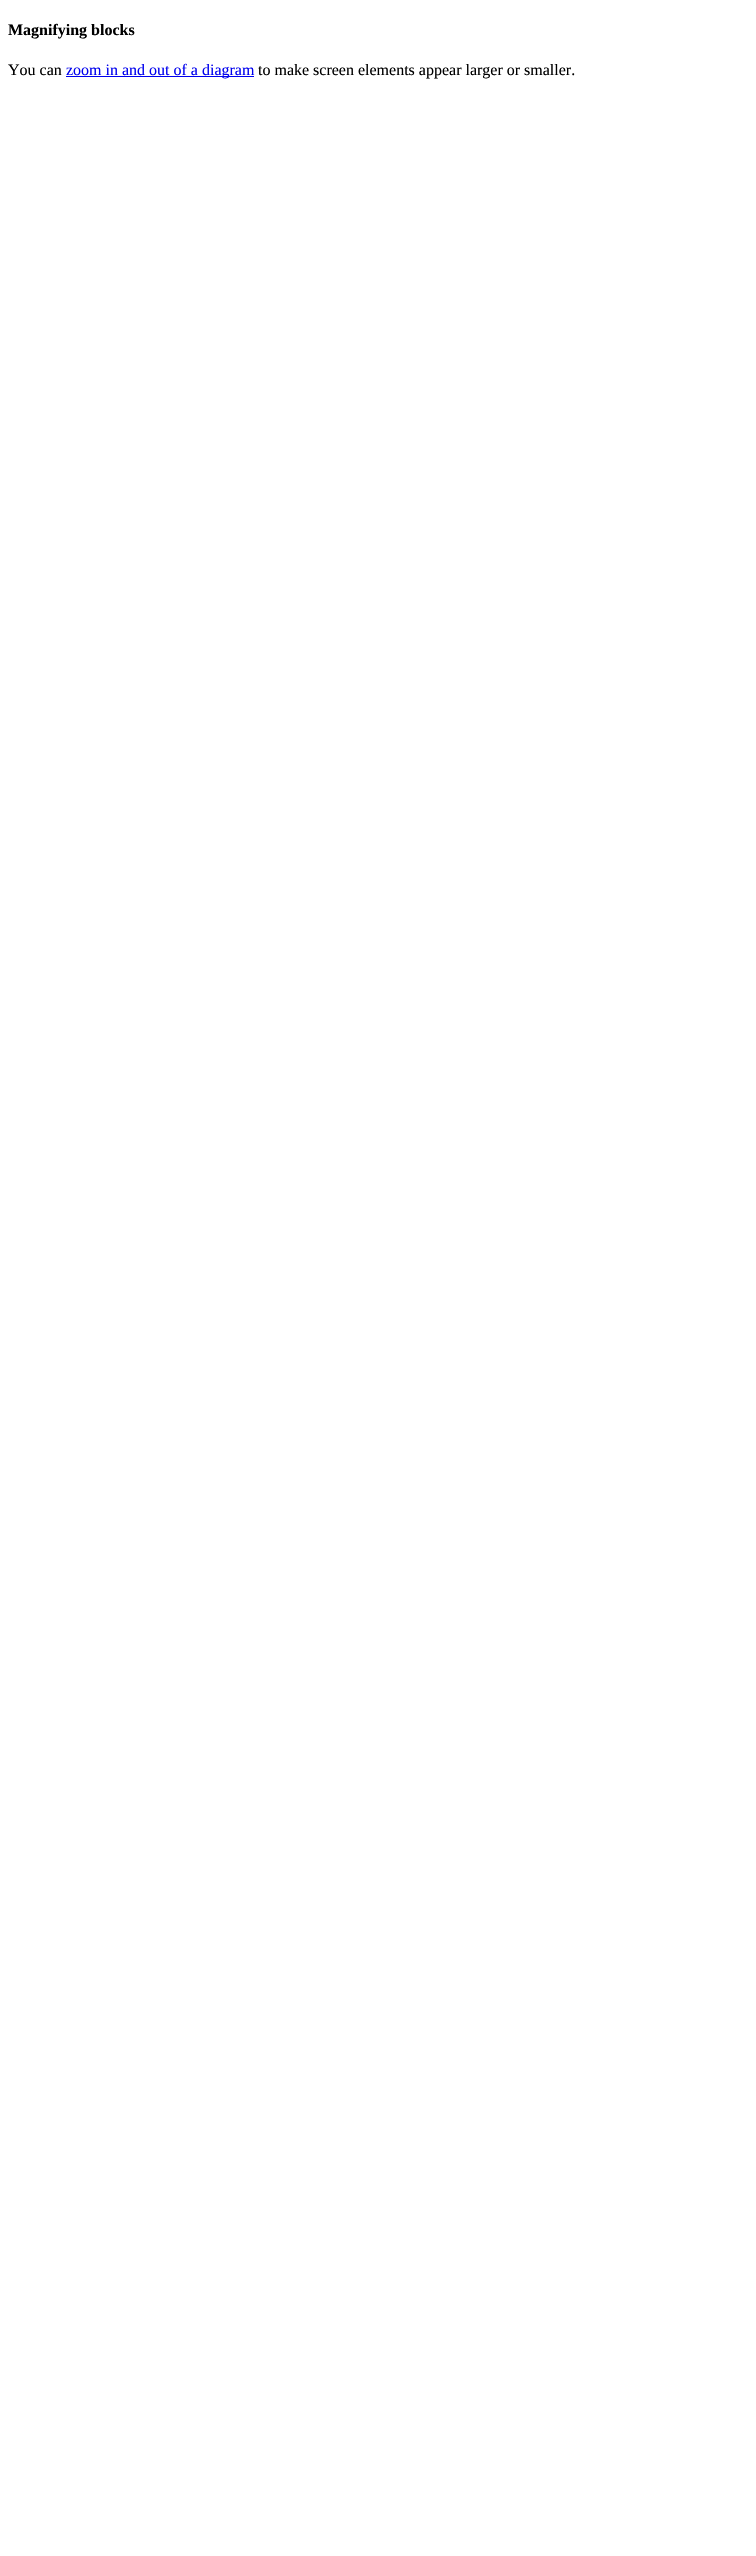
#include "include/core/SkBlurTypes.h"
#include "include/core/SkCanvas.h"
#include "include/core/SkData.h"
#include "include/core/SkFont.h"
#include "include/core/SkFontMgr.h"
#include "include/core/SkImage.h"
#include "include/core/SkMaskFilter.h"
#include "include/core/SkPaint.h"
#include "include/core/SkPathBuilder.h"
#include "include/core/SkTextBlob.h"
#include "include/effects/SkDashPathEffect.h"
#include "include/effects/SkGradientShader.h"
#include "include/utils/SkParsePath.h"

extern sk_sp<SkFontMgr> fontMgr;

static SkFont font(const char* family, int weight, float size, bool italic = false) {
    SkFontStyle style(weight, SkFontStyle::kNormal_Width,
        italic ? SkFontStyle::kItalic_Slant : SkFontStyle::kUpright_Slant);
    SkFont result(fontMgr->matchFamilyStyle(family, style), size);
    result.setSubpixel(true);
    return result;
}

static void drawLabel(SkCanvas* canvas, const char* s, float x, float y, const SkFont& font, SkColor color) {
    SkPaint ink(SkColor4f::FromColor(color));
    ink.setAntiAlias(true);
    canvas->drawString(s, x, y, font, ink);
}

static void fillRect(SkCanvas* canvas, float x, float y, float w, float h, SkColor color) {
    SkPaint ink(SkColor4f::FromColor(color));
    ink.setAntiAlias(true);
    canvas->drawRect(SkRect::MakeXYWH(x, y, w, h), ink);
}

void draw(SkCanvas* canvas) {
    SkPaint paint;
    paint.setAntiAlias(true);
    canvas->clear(0xFFFFFFFF);
    SkFont font1 = font("Liberation Serif", 700, 16);
    drawLabel(canvas, "Magnifying blocks", 8, 35, font1, 0xFF000000);
    SkFont font2 = font("Liberation Serif", 400, 16);
    drawLabel(canvas, "You can", 8, 75, font2, 0xFF000000);
    fillRect(canvas, 66, 76, 188, 1, 0xFF0000EE);
    drawLabel(canvas, "zoom in and out of a diagram", 66, 75, font2, 0xFF0000EE);
    drawLabel(canvas, "to make screen elements appear larger or smaller.", 258, 75, font2, 0xFF000000);
}
